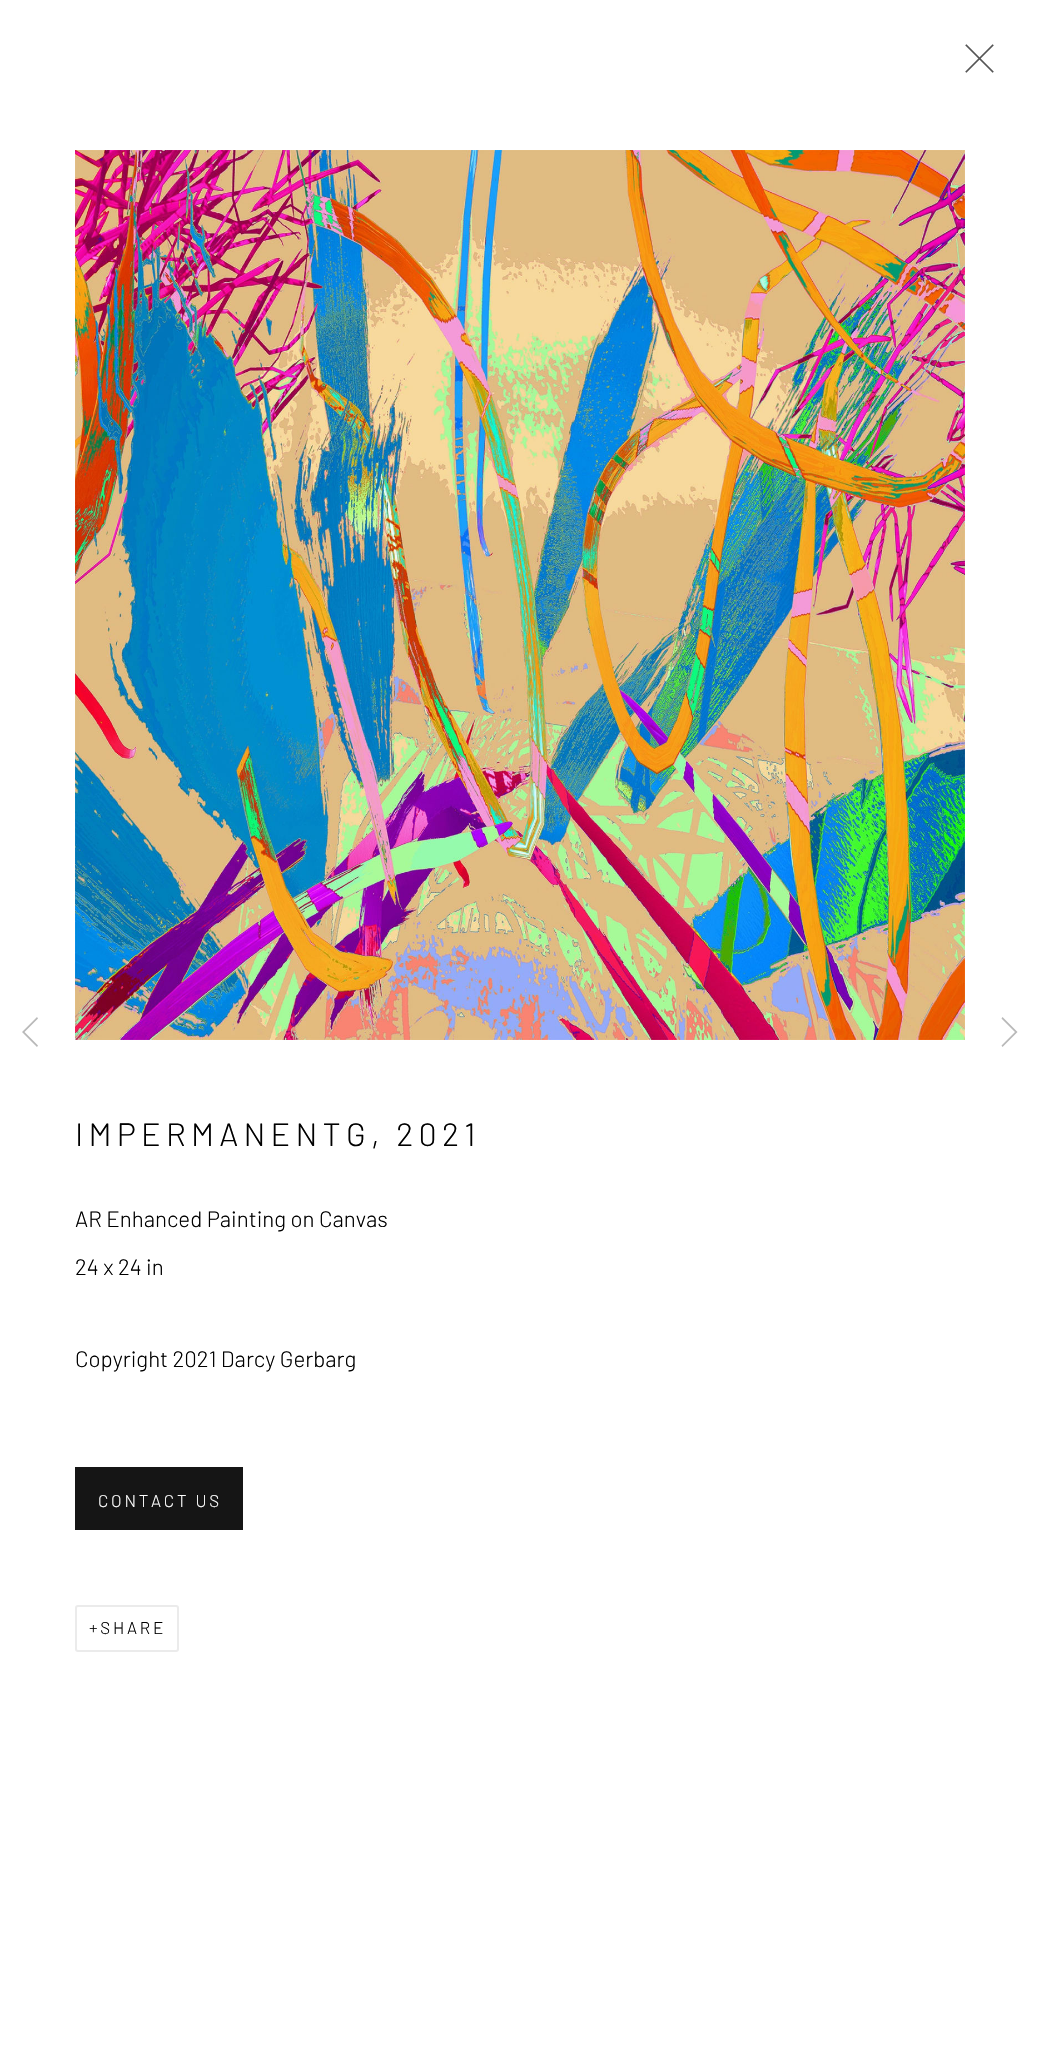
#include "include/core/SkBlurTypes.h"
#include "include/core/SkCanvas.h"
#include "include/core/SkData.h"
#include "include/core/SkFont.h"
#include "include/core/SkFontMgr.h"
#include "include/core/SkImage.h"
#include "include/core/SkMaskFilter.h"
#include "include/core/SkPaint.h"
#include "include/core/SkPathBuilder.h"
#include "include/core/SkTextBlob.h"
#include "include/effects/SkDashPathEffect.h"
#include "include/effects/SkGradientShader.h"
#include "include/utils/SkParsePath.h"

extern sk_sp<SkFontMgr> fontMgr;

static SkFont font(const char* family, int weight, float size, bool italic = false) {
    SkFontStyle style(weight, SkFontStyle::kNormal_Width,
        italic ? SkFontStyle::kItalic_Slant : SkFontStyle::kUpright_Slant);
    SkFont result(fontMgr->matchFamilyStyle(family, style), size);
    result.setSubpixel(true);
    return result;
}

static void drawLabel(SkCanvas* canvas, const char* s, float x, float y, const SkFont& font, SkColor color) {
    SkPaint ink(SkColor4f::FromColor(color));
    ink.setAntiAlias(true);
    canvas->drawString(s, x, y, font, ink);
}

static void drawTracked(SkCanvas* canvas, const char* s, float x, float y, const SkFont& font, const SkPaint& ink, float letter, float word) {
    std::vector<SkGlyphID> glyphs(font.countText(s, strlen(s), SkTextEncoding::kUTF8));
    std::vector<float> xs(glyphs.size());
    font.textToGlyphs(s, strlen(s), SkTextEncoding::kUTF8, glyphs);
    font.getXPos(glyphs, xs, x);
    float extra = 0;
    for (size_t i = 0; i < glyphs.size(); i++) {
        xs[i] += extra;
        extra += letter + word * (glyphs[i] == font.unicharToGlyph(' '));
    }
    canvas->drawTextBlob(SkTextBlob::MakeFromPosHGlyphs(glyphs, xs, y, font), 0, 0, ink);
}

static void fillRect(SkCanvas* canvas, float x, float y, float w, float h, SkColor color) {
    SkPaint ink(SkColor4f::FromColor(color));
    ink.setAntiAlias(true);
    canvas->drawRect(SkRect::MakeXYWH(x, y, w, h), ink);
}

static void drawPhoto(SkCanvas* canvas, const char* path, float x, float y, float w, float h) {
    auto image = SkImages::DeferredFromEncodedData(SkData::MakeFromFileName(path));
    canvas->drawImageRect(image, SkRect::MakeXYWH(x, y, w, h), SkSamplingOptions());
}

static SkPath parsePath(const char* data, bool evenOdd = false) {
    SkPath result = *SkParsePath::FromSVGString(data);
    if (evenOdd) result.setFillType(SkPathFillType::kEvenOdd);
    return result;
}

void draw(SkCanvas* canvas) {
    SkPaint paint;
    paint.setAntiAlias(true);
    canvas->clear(0xFFFFFFFF);
    drawPhoto(canvas, "assets/img1.png", 965, 44, 29, 29);
    paint.setColor(0xFFB9B9B9);
    canvas->drawPath(parsePath("M23 1033L37 1047L38 1045.5L24.5 1032L38 1018.5L37 1017L22 1032Z"), paint);
    canvas->drawPath(parsePath("M1017.5 1032L1002.5 1017L1001.5 1018.5L1015 1032L1001.5 1045.5L1002.5 1047Z"), paint);
    drawPhoto(canvas, "assets/img2.png", 75, 150, 890, 890);
    SkFont font1 = font("Barlow", 300, 32.25f);
    paint.setColor(0xFF000000);
    drawTracked(canvas, "IMPERMANENTG, 2021", 75, 1146, font1, paint, 5.2f, 0);
    SkFont font2 = font("Barlow", 300, 22.25f);
    drawLabel(canvas, "AR Enhanced Painting on Canvas", 75, 1227, font2, 0xFF000000);
    drawLabel(canvas, "24 x 24 in", 75, 1275, font2, 0xFF000000);
    drawLabel(canvas, "Copyright 2021 Darcy Gerbarg", 75, 1367, font2, 0xFF000000);
    fillRect(canvas, 75, 1467, 168, 63, 0xFF151515);
    SkFont font3 = font("Barlow", 300, 17);
    paint.setColor(0xFFFFFFFF);
    drawTracked(canvas, "CONTACT US", 98, 1507, font3, paint, 2.75f, 0);
    paint.setStroke(true);
    paint.setStrokeWidth(2);
    paint.setColor(0xFFEBEBEB);
    canvas->drawRoundRect(SkRect::MakeXYWH(76, 1606, 102, 45), 2, 2, paint);
    paint.setStroke(false);
    paint.setColor(0xFF000000);
    drawTracked(canvas, "+SHARE", 89, 1634, font3, paint, 2.75f, 0);
}
